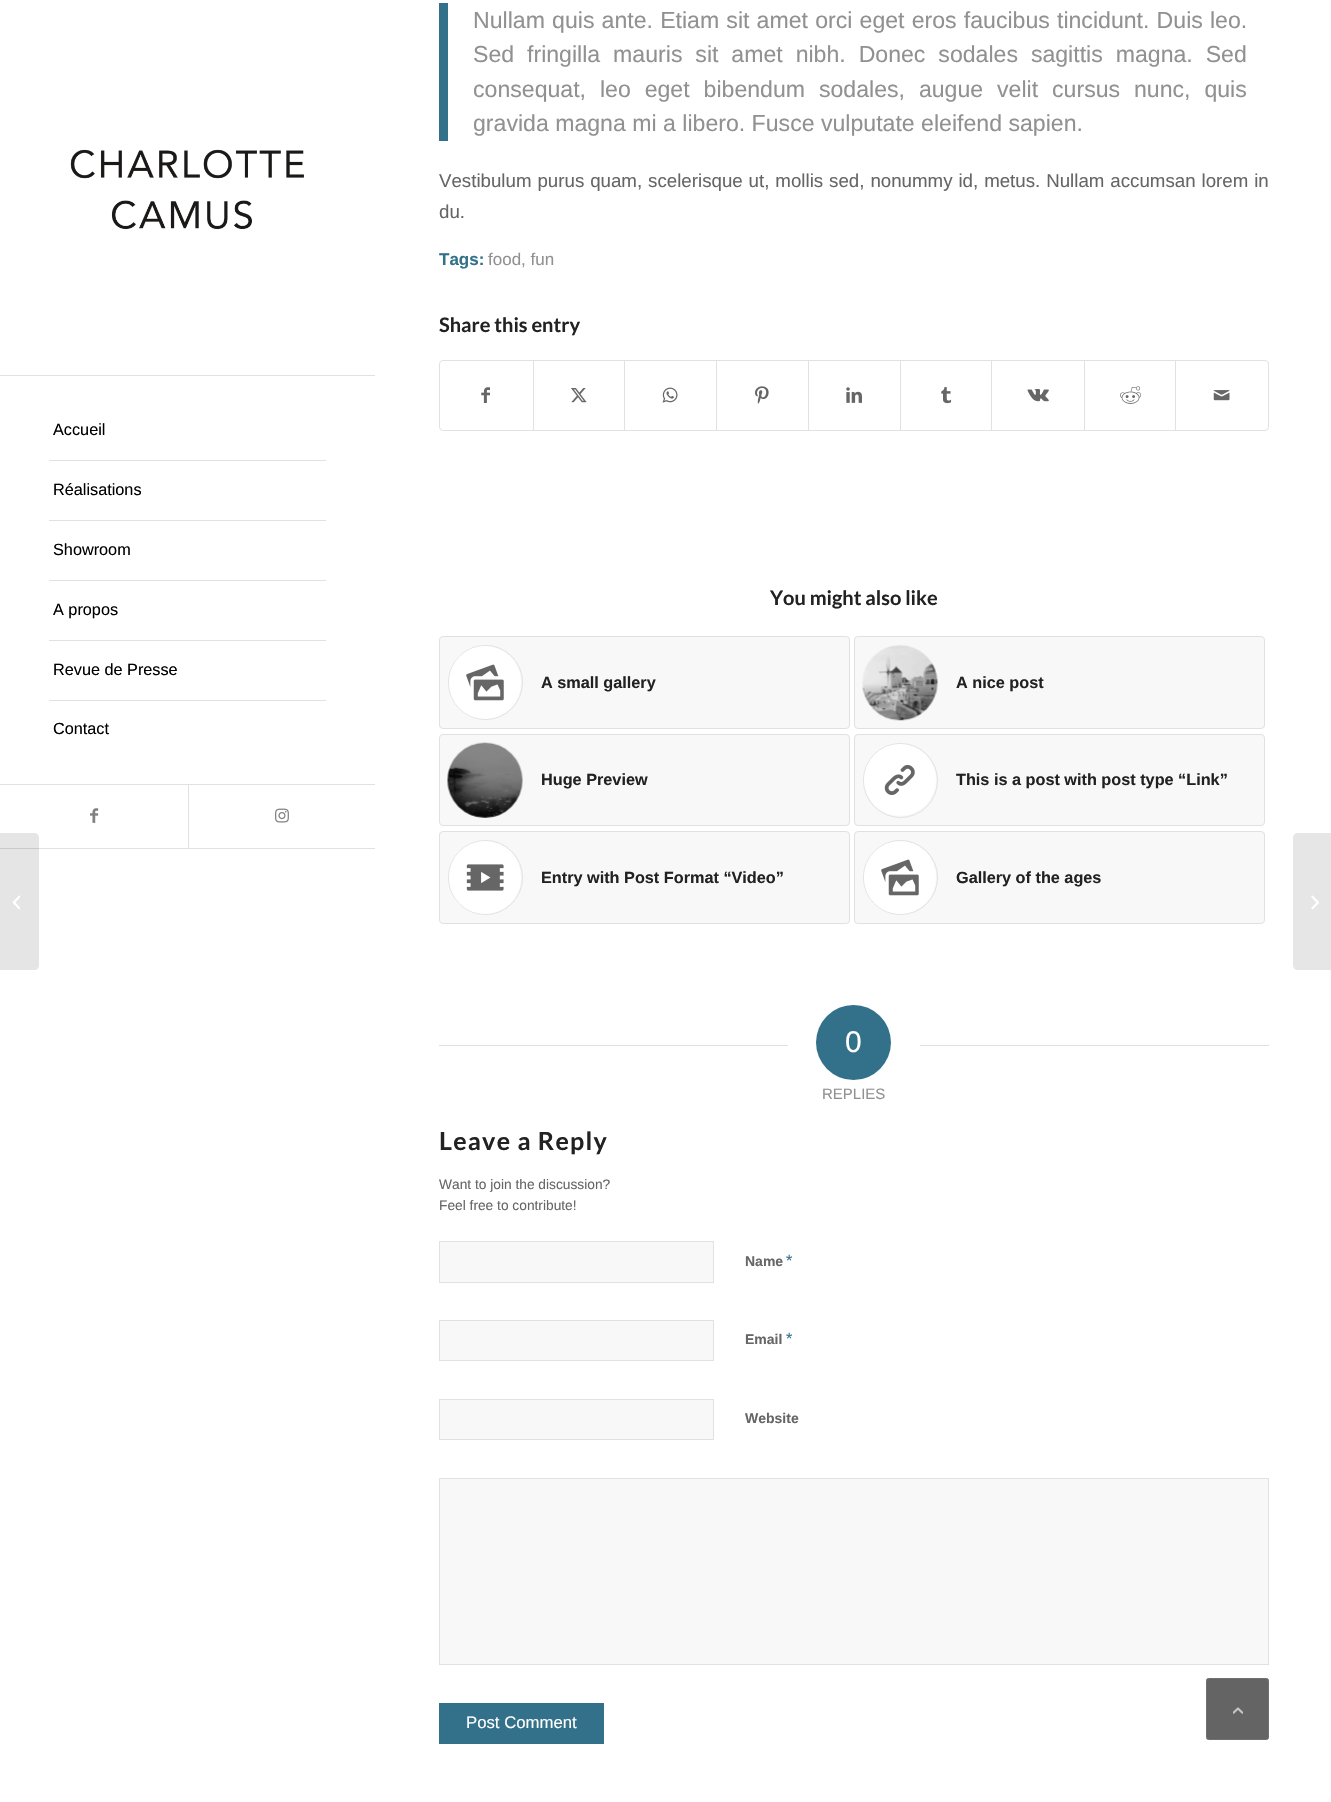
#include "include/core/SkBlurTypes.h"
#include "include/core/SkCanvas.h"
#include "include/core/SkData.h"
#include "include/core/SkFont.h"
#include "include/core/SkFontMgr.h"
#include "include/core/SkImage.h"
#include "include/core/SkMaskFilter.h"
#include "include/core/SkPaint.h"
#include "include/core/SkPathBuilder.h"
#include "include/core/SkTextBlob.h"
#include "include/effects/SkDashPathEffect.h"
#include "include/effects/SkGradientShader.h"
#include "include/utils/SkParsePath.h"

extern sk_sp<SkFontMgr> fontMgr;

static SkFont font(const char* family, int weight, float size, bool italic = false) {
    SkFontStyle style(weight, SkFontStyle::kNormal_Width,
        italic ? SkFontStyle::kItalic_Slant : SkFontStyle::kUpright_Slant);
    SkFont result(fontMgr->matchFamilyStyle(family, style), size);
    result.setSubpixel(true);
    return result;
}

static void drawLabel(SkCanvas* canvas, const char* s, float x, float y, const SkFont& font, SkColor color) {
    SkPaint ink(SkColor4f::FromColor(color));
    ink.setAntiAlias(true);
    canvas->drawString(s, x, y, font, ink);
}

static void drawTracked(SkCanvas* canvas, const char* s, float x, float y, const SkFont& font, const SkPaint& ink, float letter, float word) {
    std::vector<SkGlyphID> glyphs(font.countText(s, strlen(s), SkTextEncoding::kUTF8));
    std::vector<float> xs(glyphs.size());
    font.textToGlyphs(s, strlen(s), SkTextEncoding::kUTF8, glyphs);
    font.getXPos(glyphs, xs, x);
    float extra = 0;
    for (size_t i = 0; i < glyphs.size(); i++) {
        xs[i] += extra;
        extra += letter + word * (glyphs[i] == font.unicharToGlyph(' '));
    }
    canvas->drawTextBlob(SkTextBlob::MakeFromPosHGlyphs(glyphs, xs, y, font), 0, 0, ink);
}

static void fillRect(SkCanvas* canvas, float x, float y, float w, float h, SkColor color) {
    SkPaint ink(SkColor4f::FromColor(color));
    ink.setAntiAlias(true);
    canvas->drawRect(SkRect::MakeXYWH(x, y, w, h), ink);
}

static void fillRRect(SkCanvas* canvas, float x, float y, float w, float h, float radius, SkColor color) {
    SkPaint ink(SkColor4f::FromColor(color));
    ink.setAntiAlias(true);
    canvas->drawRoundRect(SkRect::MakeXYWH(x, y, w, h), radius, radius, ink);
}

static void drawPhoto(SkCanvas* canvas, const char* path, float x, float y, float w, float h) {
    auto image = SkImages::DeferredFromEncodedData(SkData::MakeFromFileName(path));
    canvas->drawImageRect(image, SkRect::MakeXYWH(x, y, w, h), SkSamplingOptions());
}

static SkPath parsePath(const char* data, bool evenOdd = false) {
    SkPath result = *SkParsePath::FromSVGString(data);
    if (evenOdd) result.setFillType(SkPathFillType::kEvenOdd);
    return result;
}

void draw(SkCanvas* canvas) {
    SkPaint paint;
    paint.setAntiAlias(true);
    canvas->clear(0xFFFFFFFF);
    fillRect(canvas, 0, 848, 375, 1, 0xFFE1E1E1);
    fillRect(canvas, 0, 375, 375, 1, 0xFFE1E1E1);
    drawPhoto(canvas, "assets/img1.png", 70, 149, 234, 81);
    fillRect(canvas, 49, 460, 277, 1, 0xFFE1E1E1);
    SkFont font1 = font("Liberation Sans", 400, 16.25f);
    drawLabel(canvas, "Accueil", 53, 435, font1, 0xFF000000);
    fillRect(canvas, 49, 520, 277, 1, 0xFFE1E1E1);
    drawLabel(canvas, "Réalisations", 53, 495, font1, 0xFF000000);
    fillRect(canvas, 49, 580, 277, 1, 0xFFE1E1E1);
    drawLabel(canvas, "Showroom", 53, 555, font1, 0xFF000000);
    fillRect(canvas, 49, 640, 277, 1, 0xFFE1E1E1);
    drawLabel(canvas, "A propos", 53, 615, font1, 0xFF000000);
    fillRect(canvas, 49, 700, 277, 1, 0xFFE1E1E1);
    drawLabel(canvas, "Revue de Presse", 53, 675, font1, 0xFF000000);
    drawLabel(canvas, "Contact", 53, 734, font1, 0xFF000000);
    fillRect(canvas, 0, 784, 375, 1, 0xFFE1E1E1);
    drawPhoto(canvas, "assets/img2.png", 90, 808, 9, 15);
    fillRect(canvas, 188, 785, 1, 63, 0xFFE1E1E1);
    drawPhoto(canvas, "assets/img3.png", 275, 808, 14, 15);
    fillRect(canvas, 439, 3, 9, 138, 0xFF33718A);
    SkFont font2 = font("Liberation Sans", 400, 23.1f);
    paint.setColor(0xFF919191);
    drawTracked(canvas, "Nullam quis ante. Etiam sit amet orci eget eros faucibus tincidunt. Duis leo.", 473, 28, font2, paint, 0, 0.75f);
    drawTracked(canvas, "Sed fringilla mauris sit amet nibh. Donec sodales sagittis magna. Sed", 473, 62, font2, paint, 0, 6.5f);
    drawTracked(canvas, "consequat, leo eget bibendum sodales, augue velit cursus nunc, quis", 473, 97, font2, paint, 0, 7.5f);
    drawLabel(canvas, "gravida magna mi a libero. Fusce vulputate eleifend sapien.", 473, 131, font2, 0xFF919191);
    SkFont font3 = font("Liberation Sans", 400, 18.7f);
    paint.setColor(0xFF666666);
    drawTracked(canvas, "Vestibulum purus quam, scelerisque ut, mollis sed, nonummy id, metus. Nullam accumsan lorem in", 439, 187, font3, paint, 0, 0.75f);
    drawLabel(canvas, "du.", 439, 218, font3, 0xFF666666);
    SkFont font4 = font("Liberation Sans", 700, 17);
    drawLabel(canvas, "Tags:", 439, 265, font4, 0xFF33718A);
    SkFont font5 = font("Liberation Sans", 400, 17);
    drawLabel(canvas, "food, fun", 488, 265, font5, 0xFF919191);
    SkFont font6 = font("Lato", 700, 20);
    drawLabel(canvas, "Share this entry", 439, 332, font6, 0xFF222222);
    paint.setStroke(true);
    paint.setStrokeWidth(1);
    paint.setColor(0xFFE1E1E1);
    canvas->drawRoundRect(SkRect::MakeXYWH(439.5f, 360.5f, 829, 70), 3.5f, 3.5f, paint);
    drawPhoto(canvas, "assets/img4.png", 481, 387, 9, 16);
    fillRect(canvas, 533, 361, 1, 69, 0xFFE1E1E1);
    drawPhoto(canvas, "assets/img5.png", 571, 388, 16, 15);
    fillRect(canvas, 624, 361, 1, 69, 0xFFE1E1E1);
    drawPhoto(canvas, "assets/img6.png", 662, 387, 16, 16);
    fillRect(canvas, 716, 361, 1, 69, 0xFFE1E1E1);
    drawPhoto(canvas, "assets/img7.png", 755, 386, 14, 18);
    fillRect(canvas, 808, 361, 1, 69, 0xFFE1E1E1);
    drawPhoto(canvas, "assets/img8.png", 846, 387, 16, 16);
    fillRect(canvas, 900, 361, 1, 69, 0xFFE1E1E1);
    drawPhoto(canvas, "assets/img9.png", 941, 387, 11, 17);
    fillRect(canvas, 991, 361, 1, 69, 0xFFE1E1E1);
    drawPhoto(canvas, "assets/img10.png", 1027, 389, 22, 13);
    fillRect(canvas, 1084, 361, 1, 69, 0xFFE1E1E1);
    drawPhoto(canvas, "assets/img11.png", 1120, 386, 22, 18);
    fillRect(canvas, 1175, 361, 1, 69, 0xFFE1E1E1);
    drawPhoto(canvas, "assets/img12.png", 1213, 390, 17, 11);
    drawLabel(canvas, "You might also like", 770, 605, font6, 0xFF222222);
    paint.setStroke(false);
    paint.setColor(0xFFF8F8F8);
    canvas->drawRoundRect(SkRect::MakeXYWH(439.5f, 636.5f, 410, 92), 3.5f, 3.5f, paint);
    paint.setStroke(true);
    paint.setColor(0xFFE1E1E1);
    canvas->drawRoundRect(SkRect::MakeXYWH(439.5f, 636.5f, 410, 92), 3.5f, 3.5f, paint);
    canvas->drawCircle(485.5f, 682.5f, 37, paint);
    fillRRect(canvas, 449, 646, 72, 73, 36, 0xFFFFFFFF);
    drawPhoto(canvas, "assets/img13.png", 466, 664, 38, 37);
    SkFont font7 = font("Liberation Sans", 700, 16.25f);
    drawLabel(canvas, "A small gallery", 541, 688, font7, 0xFF222222);
    paint.setStroke(false);
    paint.setColor(0xFFF8F8F8);
    canvas->drawRoundRect(SkRect::MakeXYWH(854.5f, 636.5f, 410, 92), 3.5f, 3.5f, paint);
    paint.setStroke(true);
    paint.setColor(0xFFE1E1E1);
    canvas->drawRoundRect(SkRect::MakeXYWH(854.5f, 636.5f, 410, 92), 3.5f, 3.5f, paint);
    drawPhoto(canvas, "assets/img14.png", 862, 645, 76, 76);
    drawLabel(canvas, "A nice post", 956, 688, font7, 0xFF222222);
    paint.setStroke(false);
    paint.setColor(0xFFF8F8F8);
    canvas->drawRoundRect(SkRect::MakeXYWH(439.5f, 734.5f, 410, 91), 3.5f, 3.5f, paint);
    paint.setStroke(true);
    paint.setColor(0xFFE1E1E1);
    canvas->drawRoundRect(SkRect::MakeXYWH(439.5f, 734.5f, 410, 91), 3.5f, 3.5f, paint);
    drawPhoto(canvas, "assets/img15.png", 447, 742, 76, 76);
    drawLabel(canvas, "Huge Preview", 541, 785, font7, 0xFF222222);
    paint.setStroke(false);
    paint.setColor(0xFFF8F8F8);
    canvas->drawRoundRect(SkRect::MakeXYWH(854.5f, 734.5f, 410, 91), 3.5f, 3.5f, paint);
    paint.setStroke(true);
    paint.setColor(0xFFE1E1E1);
    canvas->drawRoundRect(SkRect::MakeXYWH(854.5f, 734.5f, 410, 91), 3.5f, 3.5f, paint);
    canvas->drawCircle(900.5f, 780.5f, 37, paint);
    paint.setStroke(false);
    paint.setColor(0xFFFFFFFF);
    canvas->drawCircle(900, 780, 36, paint);
    drawPhoto(canvas, "assets/img16.png", 884, 765, 31, 30);
    drawLabel(canvas, "This is a post with post type “Link”", 956, 785, font7, 0xFF222222);
    paint.setColor(0xFFF8F8F8);
    canvas->drawRoundRect(SkRect::MakeXYWH(439.5f, 831.5f, 410, 92), 3.5f, 3.5f, paint);
    paint.setStroke(true);
    paint.setColor(0xFFE1E1E1);
    canvas->drawRoundRect(SkRect::MakeXYWH(439.5f, 831.5f, 410, 92), 3.5f, 3.5f, paint);
    canvas->drawCircle(485.5f, 877.5f, 37, paint);
    fillRRect(canvas, 449, 841, 72, 73, 36, 0xFFFFFFFF);
    drawPhoto(canvas, "assets/img17.png", 466, 864, 38, 27);
    drawLabel(canvas, "Entry with Post Format “Video”", 541, 883, font7, 0xFF222222);
    paint.setStroke(false);
    paint.setColor(0xFFF8F8F8);
    canvas->drawRoundRect(SkRect::MakeXYWH(854.5f, 831.5f, 410, 92), 3.5f, 3.5f, paint);
    paint.setStroke(true);
    paint.setColor(0xFFE1E1E1);
    canvas->drawRoundRect(SkRect::MakeXYWH(854.5f, 831.5f, 410, 92), 3.5f, 3.5f, paint);
    canvas->drawCircle(900.5f, 877.5f, 37, paint);
    fillRRect(canvas, 864, 841, 72, 73, 36, 0xFFFFFFFF);
    drawPhoto(canvas, "assets/img13.png", 881, 859, 38, 37);
    drawLabel(canvas, "Gallery of the ages", 956, 883, font7, 0xFF222222);
    fillRect(canvas, 439, 1045, 349, 1, 0xFFE1E1E1);
    paint.setStroke(false);
    paint.setColor(0xFF33718A);
    canvas->drawCircle(853.5f, 1042.5f, 37.5f, paint);
    SkFont font8 = font("Liberation Sans", 400, 30);
    drawLabel(canvas, "0", 845, 1052, font8, 0xFFFFFFFF);
    fillRect(canvas, 920, 1045, 349, 1, 0xFFE1E1E1);
    SkFont font9 = font("Liberation Sans", 400, 15);
    drawLabel(canvas, "REPLIES", 822, 1099, font9, 0xFF919191);
    SkFont font10 = font("Lato", 700, 25);
    paint.setColor(0xFF222222);
    drawTracked(canvas, "Leave a Reply", 439, 1150, font10, paint, 1.25f, 0);
    SkFont font11 = font("Liberation Sans", 400, 13.75f);
    drawLabel(canvas, "Want to join the discussion?", 439, 1189, font11, 0xFF666666);
    drawLabel(canvas, "Feel free to contribute!", 439, 1210, font11, 0xFF666666);
    paint.setColor(0xFFF8F8F8);
    canvas->drawRect(SkRect::MakeXYWH(439.5f, 1241.5f, 274, 41), paint);
    paint.setStroke(true);
    paint.setColor(0xFFE1E1E1);
    canvas->drawRect(SkRect::MakeXYWH(439.5f, 1241.5f, 274, 41), paint);
    SkFont font12 = font("Liberation Sans", 700, 14);
    drawLabel(canvas, "Name", 745, 1266, font12, 0xFF666666);
    drawLabel(canvas, "*", 786, 1266, font1, 0xFF33718A);
    paint.setStroke(false);
    paint.setColor(0xFFF8F8F8);
    canvas->drawRect(SkRect::MakeXYWH(439.5f, 1320.5f, 274, 40), paint);
    paint.setStroke(true);
    paint.setColor(0xFFE1E1E1);
    canvas->drawRect(SkRect::MakeXYWH(439.5f, 1320.5f, 274, 40), paint);
    drawLabel(canvas, "Email", 745, 1344, font12, 0xFF666666);
    drawLabel(canvas, "*", 786, 1344, font1, 0xFF33718A);
    paint.setStroke(false);
    paint.setColor(0xFFF8F8F8);
    canvas->drawRect(SkRect::MakeXYWH(439.5f, 1399.5f, 274, 40), paint);
    paint.setStroke(true);
    paint.setColor(0xFFE1E1E1);
    canvas->drawRect(SkRect::MakeXYWH(439.5f, 1399.5f, 274, 40), paint);
    drawLabel(canvas, "Website", 745, 1423, font12, 0xFF666666);
    paint.setStroke(false);
    paint.setColor(0xFFF8F8F8);
    canvas->drawRect(SkRect::MakeXYWH(439.5f, 1478.5f, 829, 186), paint);
    paint.setStroke(true);
    paint.setColor(0xFFE1E1E1);
    canvas->drawRect(SkRect::MakeXYWH(439.5f, 1478.5f, 829, 186), paint);
    fillRect(canvas, 439, 1703, 165, 41, 0xFF33718A);
    SkFont font13 = font("Liberation Sans", 400, 16.75f);
    drawLabel(canvas, "Post Comment", 466, 1728, font13, 0xFFFFFFFF);
    paint.setStroke(false);
    paint.setColor(0x1A000000);
    canvas->drawPath(parsePath("M0 833H34C37 833 39 835 39 838V965C39 968 37 970 34 970H0Z"), paint);
    drawPhoto(canvas, "assets/img18.png", 13, 895, 7, 15);
    paint.setColor(0xFFE6E6E6);
    canvas->drawPath(parsePath("M1298 833H1331V970H1298C1295 970 1293 968 1293 965V838C1293 835 1295 833 1298 833Z"), paint);
    drawPhoto(canvas, "assets/img19.png", 1311, 895, 8, 15);
    paint.setColor(0xFF646464);
    canvas->drawRoundRect(SkRect::MakeXYWH(1206.5f, 1678.5f, 62, 61), 2, 2, paint);
    paint.setStroke(true);
    paint.setColor(0xFF707070);
    canvas->drawRoundRect(SkRect::MakeXYWH(1206.5f, 1678.5f, 62, 61), 2, 2, paint);
    drawPhoto(canvas, "assets/img20.png", 1233, 1707, 10, 7);
}
